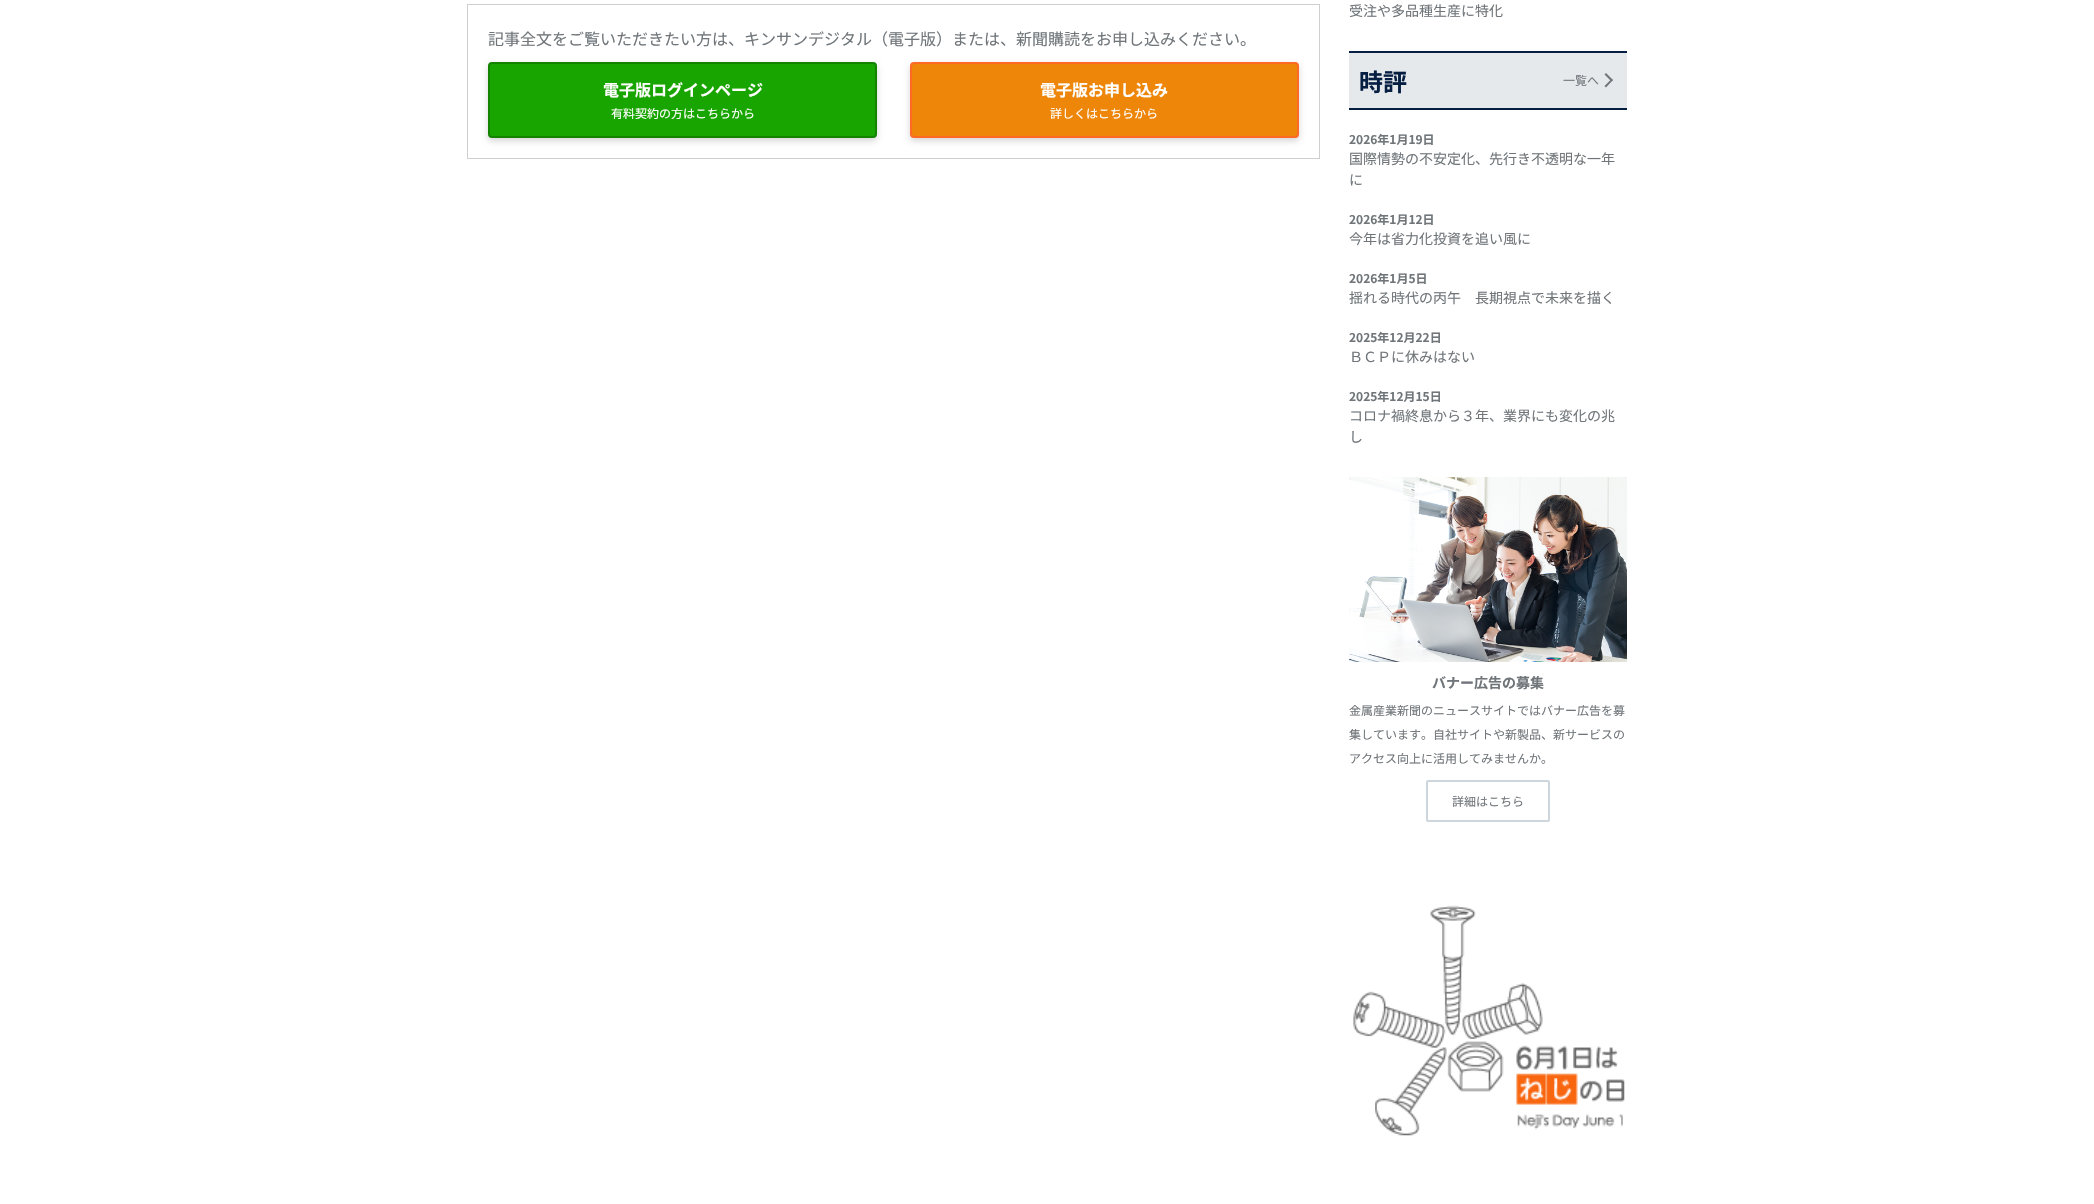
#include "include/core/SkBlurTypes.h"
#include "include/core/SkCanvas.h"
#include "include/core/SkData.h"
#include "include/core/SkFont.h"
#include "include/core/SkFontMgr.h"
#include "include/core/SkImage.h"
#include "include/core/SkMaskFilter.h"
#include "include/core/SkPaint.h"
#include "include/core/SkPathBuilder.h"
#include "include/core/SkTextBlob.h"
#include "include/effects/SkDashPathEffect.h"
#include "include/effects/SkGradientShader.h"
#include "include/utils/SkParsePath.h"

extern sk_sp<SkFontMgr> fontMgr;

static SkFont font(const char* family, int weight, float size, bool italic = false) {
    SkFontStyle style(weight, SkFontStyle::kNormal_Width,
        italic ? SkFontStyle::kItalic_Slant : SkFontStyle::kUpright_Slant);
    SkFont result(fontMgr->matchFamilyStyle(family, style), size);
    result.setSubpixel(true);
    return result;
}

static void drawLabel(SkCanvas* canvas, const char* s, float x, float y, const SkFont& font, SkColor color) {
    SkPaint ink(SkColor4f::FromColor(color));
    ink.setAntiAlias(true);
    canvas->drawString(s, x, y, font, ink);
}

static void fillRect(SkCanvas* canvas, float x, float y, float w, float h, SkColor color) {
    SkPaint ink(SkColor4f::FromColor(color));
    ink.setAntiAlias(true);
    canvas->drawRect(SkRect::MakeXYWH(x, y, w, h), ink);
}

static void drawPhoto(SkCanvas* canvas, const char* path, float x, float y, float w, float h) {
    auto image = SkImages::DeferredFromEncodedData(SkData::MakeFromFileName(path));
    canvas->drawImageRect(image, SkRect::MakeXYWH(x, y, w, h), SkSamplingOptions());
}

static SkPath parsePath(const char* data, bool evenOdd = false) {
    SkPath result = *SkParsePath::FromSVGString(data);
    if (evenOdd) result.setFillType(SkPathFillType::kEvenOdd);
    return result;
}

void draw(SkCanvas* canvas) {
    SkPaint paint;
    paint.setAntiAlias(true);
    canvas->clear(0xFFFFFFFF);
    paint.setStroke(true);
    paint.setStrokeWidth(1);
    paint.setColor(0xFFCFCFCF);
    canvas->drawRect(SkRect::MakeXYWH(467.5f, 4.5f, 852, 154), paint);
    SkFont font1 = font("Noto Sans JP", 400, 16);
    drawLabel(canvas, "記事全文をご覧いただきたい方は、キンサンデジタル（電子版）または、新聞購読をお申し込みください。", 488, 45, font1, 0xFF6F7579);
    paint.setStroke(false);
    paint.setColor(0x29000000);
    paint.setMaskFilter(SkMaskFilter::MakeBlur(kNormal_SkBlurStyle, 3));
    canvas->drawRoundRect(SkRect::MakeXYWH(488, 65, 389, 76), 4, 4, paint);
    paint.setMaskFilter(nullptr);
    paint.setColor(0xFF19A500);
    canvas->drawRoundRect(SkRect::MakeXYWH(489, 63, 387, 74), 3, 3, paint);
    paint.setStroke(true);
    paint.setStrokeWidth(2);
    paint.setColor(0xFF148400);
    canvas->drawRoundRect(SkRect::MakeXYWH(489, 63, 387, 74), 3, 3, paint);
    SkFont font2 = font("Noto Sans JP", 700, 16);
    drawLabel(canvas, "電子版ログインページ", 603, 96, font2, 0xFFFFFFFF);
    SkFont font3 = font("Noto Sans JP", 400, 12);
    drawLabel(canvas, "有料契約の方はこちらから", 611, 118, font3, 0xFFFFFFFF);
    paint.setStroke(false);
    paint.setColor(0x29000000);
    paint.setMaskFilter(SkMaskFilter::MakeBlur(kNormal_SkBlurStyle, 3));
    canvas->drawRoundRect(SkRect::MakeXYWH(910, 65, 389, 76), 4, 4, paint);
    paint.setMaskFilter(nullptr);
    paint.setColor(0xFFED8609);
    canvas->drawRoundRect(SkRect::MakeXYWH(911, 63, 387, 74), 3, 3, paint);
    paint.setStroke(true);
    paint.setColor(0xFFFC6A25);
    canvas->drawRoundRect(SkRect::MakeXYWH(911, 63, 387, 74), 3, 3, paint);
    drawLabel(canvas, "電子版お申し込み", 1040, 96, font2, 0xFFFFFFFF);
    drawLabel(canvas, "詳しくはこちらから", 1050, 118, font3, 0xFFFFFFFF);
    SkFont font4 = font("Noto Sans JP", 400, 14);
    drawLabel(canvas, "受注や多品種生産に特化", 1349, 16, font4, 0xFF6F7579);
    fillRect(canvas, 1349, 53, 278, 55, 0xFFE6E9EC);
    fillRect(canvas, 1349, 51, 278, 2, 0xFF051E42);
    fillRect(canvas, 1349, 108, 278, 2, 0xFF051E42);
    SkFont font5 = font("Noto Sans JP", 700, 24);
    drawLabel(canvas, "時評", 1359, 91, font5, 0xFF051E42);
    drawLabel(canvas, "一覧へ", 1563, 85, font3, 0xFF6F7579);
    paint.setStroke(false);
    paint.setColor(0xFF6F7579);
    canvas->drawPath(parsePath("M1606 73L1613 80L1611.5 81.5L1604.5 74.5Z"), paint);
    canvas->drawPath(parsePath("M1611.5 79L1613 80L1606 87.5L1604.5 86Z"), paint);
    SkFont font6 = font("Noto Sans JP", 700, 12);
    drawLabel(canvas, "2026年1月19日", 1349, 144, font6, 0xFF6F7579);
    drawLabel(canvas, "国際情勢の不安定化、先行き不透明な一年", 1349, 164, font4, 0xFF6F7579);
    drawLabel(canvas, "に", 1349, 185, font4, 0xFF6F7579);
    drawLabel(canvas, "2026年1月12日", 1349, 224, font6, 0xFF6F7579);
    drawLabel(canvas, "今年は省力化投資を追い風に", 1349, 244, font4, 0xFF6F7579);
    drawLabel(canvas, "2026年1月5日", 1349, 283, font6, 0xFF6F7579);
    drawLabel(canvas, "揺れる時代の丙午　長期視点で未来を描く", 1349, 303, font4, 0xFF6F7579);
    drawLabel(canvas, "2025年12月22日", 1349, 342, font6, 0xFF6F7579);
    drawLabel(canvas, "ＢＣＰに休みはない", 1349, 362, font4, 0xFF6F7579);
    drawLabel(canvas, "2025年12月15日", 1349, 401, font6, 0xFF6F7579);
    drawLabel(canvas, "コロナ禍終息から３年、業界にも変化の兆", 1349, 421, font4, 0xFF6F7579);
    drawLabel(canvas, "し", 1349, 442, font4, 0xFF6F7579);
    drawPhoto(canvas, "assets/img1.png", 1349, 477, 278, 185);
    SkFont font7 = font("Noto Sans JP", 700, 14);
    drawLabel(canvas, "バナー広告の募集", 1432, 688, font7, 0xFF6F7579);
    drawLabel(canvas, "金属産業新聞のニュースサイトではバナー広告を募", 1349, 715, font3, 0xFF6F7579);
    drawLabel(canvas, "集しています。自社サイトや新製品、新サービスの", 1349, 739, font3, 0xFF6F7579);
    drawLabel(canvas, "アクセス向上に活用してみませんか。", 1349, 763, font3, 0xFF6F7579);
    paint.setStroke(true);
    paint.setColor(0xFFCDD6DD);
    canvas->drawRoundRect(SkRect::MakeXYWH(1427, 781, 122, 40), 1, 1, paint);
    drawLabel(canvas, "詳細はこちら", 1452, 806, font3, 0xFF6F7579);
    drawPhoto(canvas, "assets/img2.png", 1353, 905, 272, 231);
}
